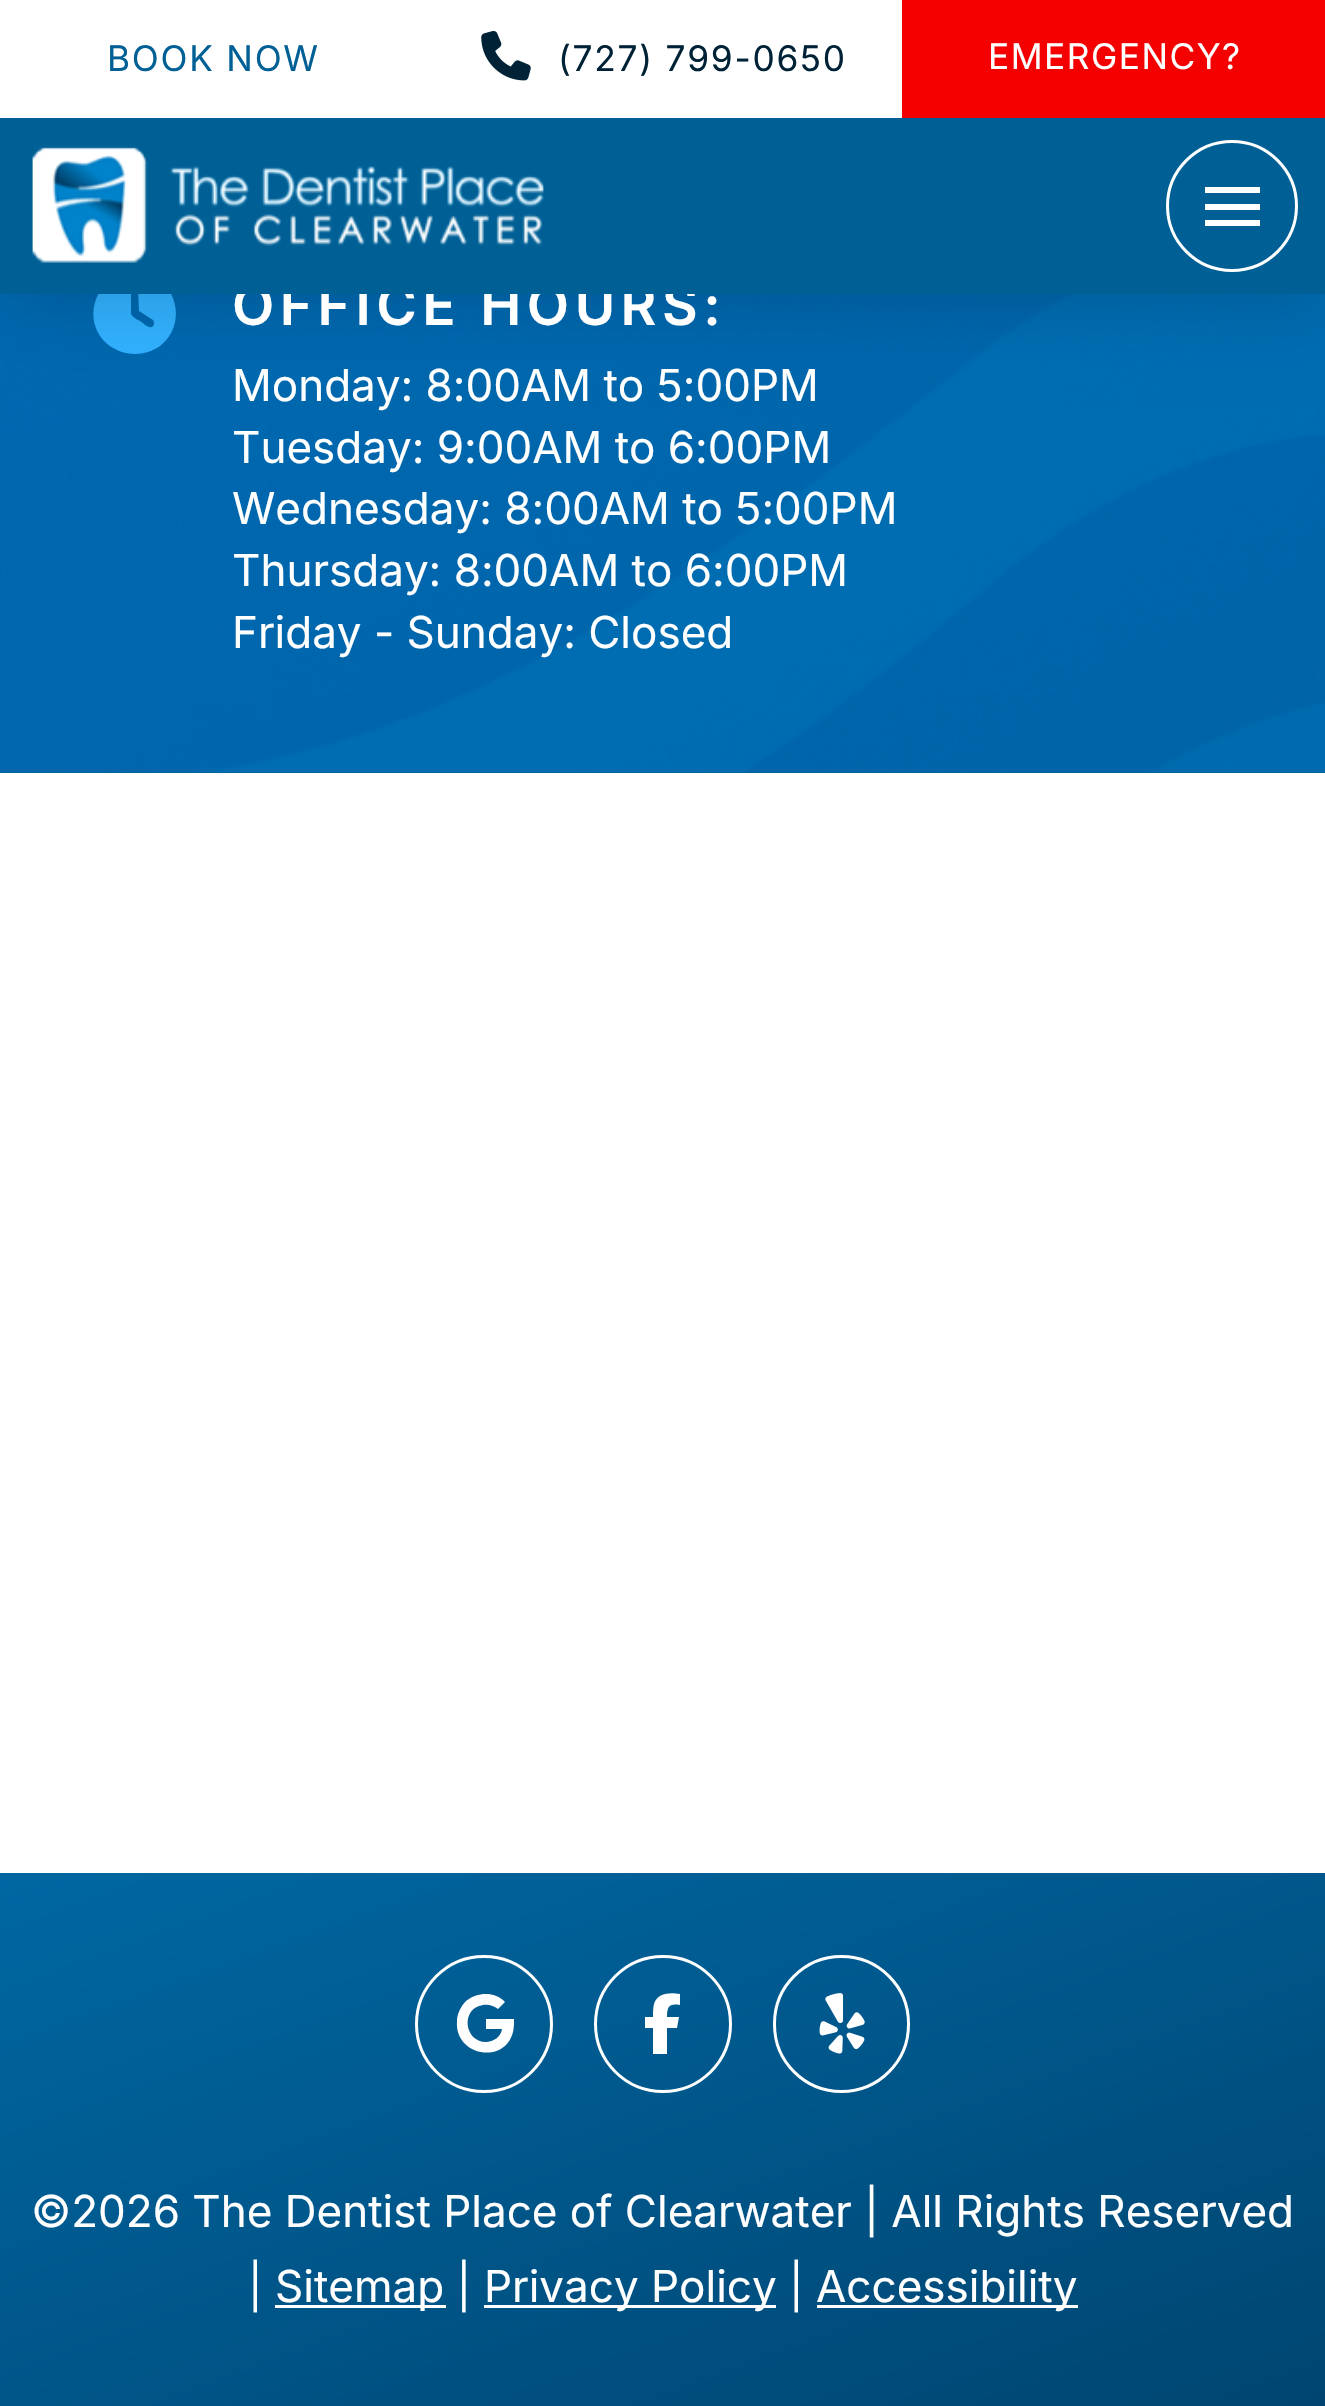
#include "include/core/SkBlurTypes.h"
#include "include/core/SkCanvas.h"
#include "include/core/SkData.h"
#include "include/core/SkFont.h"
#include "include/core/SkFontMgr.h"
#include "include/core/SkImage.h"
#include "include/core/SkMaskFilter.h"
#include "include/core/SkPaint.h"
#include "include/core/SkPathBuilder.h"
#include "include/core/SkTextBlob.h"
#include "include/effects/SkDashPathEffect.h"
#include "include/effects/SkGradientShader.h"
#include "include/utils/SkParsePath.h"

extern sk_sp<SkFontMgr> fontMgr;

static SkFont font(const char* family, int weight, float size, bool italic = false) {
    SkFontStyle style(weight, SkFontStyle::kNormal_Width,
        italic ? SkFontStyle::kItalic_Slant : SkFontStyle::kUpright_Slant);
    SkFont result(fontMgr->matchFamilyStyle(family, style), size);
    result.setSubpixel(true);
    return result;
}

static void drawLabel(SkCanvas* canvas, const char* s, float x, float y, const SkFont& font, SkColor color) {
    SkPaint ink(SkColor4f::FromColor(color));
    ink.setAntiAlias(true);
    canvas->drawString(s, x, y, font, ink);
}

static void drawTracked(SkCanvas* canvas, const char* s, float x, float y, const SkFont& font, const SkPaint& ink, float letter, float word) {
    std::vector<SkGlyphID> glyphs(font.countText(s, strlen(s), SkTextEncoding::kUTF8));
    std::vector<float> xs(glyphs.size());
    font.textToGlyphs(s, strlen(s), SkTextEncoding::kUTF8, glyphs);
    font.getXPos(glyphs, xs, x);
    float extra = 0;
    for (size_t i = 0; i < glyphs.size(); i++) {
        xs[i] += extra;
        extra += letter + word * (glyphs[i] == font.unicharToGlyph(' '));
    }
    canvas->drawTextBlob(SkTextBlob::MakeFromPosHGlyphs(glyphs, xs, y, font), 0, 0, ink);
}

static void fillRect(SkCanvas* canvas, float x, float y, float w, float h, SkColor color) {
    SkPaint ink(SkColor4f::FromColor(color));
    ink.setAntiAlias(true);
    canvas->drawRect(SkRect::MakeXYWH(x, y, w, h), ink);
}

static void drawPhoto(SkCanvas* canvas, const char* path, float x, float y, float w, float h) {
    auto image = SkImages::DeferredFromEncodedData(SkData::MakeFromFileName(path));
    canvas->drawImageRect(image, SkRect::MakeXYWH(x, y, w, h), SkSamplingOptions());
}

static SkPath parsePath(const char* data, bool evenOdd = false) {
    SkPath result = *SkParsePath::FromSVGString(data);
    if (evenOdd) result.setFillType(SkPathFillType::kEvenOdd);
    return result;
}

void draw(SkCanvas* canvas) {
    SkPaint paint;
    paint.setAntiAlias(true);
    canvas->clear(0xFFFFFFFF);
    fillRect(canvas, 0, 772, 1325, 1, 0xFF006096);
    drawPhoto(canvas, "assets/img3.png", 0, 294, 1325, 479);
    paint.setColor(0xFF31B1FF);
    canvas->drawPath(parsePath("M135 272C174 272 191 322 160 346C153 351 144 354 135 354C126 354 117 351 110 346C78 322 96 272 135 272ZM131 291V314C132 317 138 320 140 321C143 323 152 332 154 324C154 323 154 321 153 320L139 311L138 289C137 285 131 287 131 291Z"), paint);
    paint.setColor(0x26000000);
    paint.setMaskFilter(SkMaskFilter::MakeBlur(kNormal_SkBlurStyle, 34.5f));
    canvas->drawRect(SkRect::MakeXYWH(0, 8, 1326, 295), paint);
    paint.setMaskFilter(nullptr);
    SkFont font1 = font("Inter", 600, 55);
    paint.setColor(0xFFFFFFFF);
    drawTracked(canvas, "OFFICE HOURS:", 232, 325, font1, paint, 5.5f, 0);
    fillRect(canvas, 0, 118, 1325, 176, 0xFF006096);
    paint.setStroke(true);
    paint.setStrokeWidth(3);
    canvas->drawRect(SkRect::MakeXYWH(1.5f, 1.5f, 421, 115), paint);
    fillRect(canvas, 3, 3, 418, 112, 0xFFFFFFFF);
    SkFont font2 = font("Inter", 400, 35.25f);
    paint.setStroke(false);
    paint.setColor(0xFF006096);
    drawTracked(canvas, "BOOK NOW", 107, 71, font2, paint, 1.75f, 0);
    fillRect(canvas, 424, 0, 478, 118, 0xFFFFFFFF);
    drawPhoto(canvas, "assets/img1.png", 481, 31, 50, 50);
    paint.setColor(0xFF002237);
    drawTracked(canvas, "(727) 799-0650", 558, 71, font2, paint, 1.75f, 0);
    fillRect(canvas, 902, 0, 423, 118, 0xFFF50000);
    paint.setColor(0xFFFFFFFF);
    drawTracked(canvas, "EMERGENCY?", 988, 69, font2, paint, 1.5f, 0);
    drawPhoto(canvas, "assets/img2.png", 32, 147, 512, 116);
    paint.setStroke(true);
    canvas->drawCircle(1232, 206, 64.5f, paint);
    fillRect(canvas, 1205, 187, 55, 6, 0xFFFFFFFF);
    fillRect(canvas, 1205, 204, 55, 6, 0xFFFFFFFF);
    fillRect(canvas, 1205, 220, 55, 6, 0xFFFFFFFF);
    SkFont font3 = font("Inter", 400, 44);
    drawLabel(canvas, "Monday: 8:00AM to 5:00PM", 232, 401, font3, 0xFFFFFFFF);
    drawLabel(canvas, "Tuesday: 9:00AM to 6:00PM", 232, 463, font3, 0xFFFFFFFF);
    drawLabel(canvas, "Wednesday: 8:00AM to 5:00PM", 232, 524, font3, 0xFFFFFFFF);
    drawLabel(canvas, "Thursday: 8:00AM to 6:00PM", 232, 586, font3, 0xFFFFFFFF);
    drawLabel(canvas, "Friday - Sunday: Closed", 232, 648, font3, 0xFFFFFFFF);
    paint.setStroke(false);
    {
        const SkColor colors[] = {0xFF0083CA, 0xFF00436E};
        const float stops[] = {0, 1};
        const SkPoint ends[] = {{238, 973}, {845, 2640}};
        paint.setShader(SkGradientShader::MakeLinear(ends, colors, stops, 2, SkTileMode::kClamp));
        paint.setAlpha(255);
    }
    canvas->drawRect(SkRect::MakeXYWH(0, 1873, 1325, 533), paint);
    paint.setStroke(true);
    paint.setShader(nullptr);
    paint.setColor(0xFFFFFFFF);
    canvas->drawCircle(484, 2024, 67.5f, paint);
    paint.setStroke(false);
    canvas->drawPath(parsePath("M514 2024C513 2066 454 2059 457 2021C457 2014 461 2006 466 2001C477 1992 495 1991 505 2002L498 2009C494 2006 489 2004 483 2005C460 2008 464 2043 487 2042C494 2041 501 2037 502 2029H486V2019H514Z"), paint);
    paint.setStroke(true);
    canvas->drawCircle(663, 2024, 67.5f, paint);
    paint.setStroke(false);
    canvas->drawPath(parsePath("M653 2028V2054V2028V2054H667V2028H677L679 2017H667C667 2007 669 2003 680 2005V1994C670 1992 657 1993 654 2004C653 2008 653 2012 653 2017H645V2028Z"), paint);
    paint.setStroke(true);
    canvas->drawRoundRect(SkRect::MakeXYWH(774.5f, 1956.5f, 134, 135), 67, 67, paint);
    drawPhoto(canvas, "assets/img4.png", 819, 1993, 46, 61);
    drawLabel(canvas, "©2026 The Dentist Place of Clearwater | All Rights Reserved", 31, 2227, font3, 0xFFFFFFFF);
    drawLabel(canvas, "|", 248, 2302, font3, 0xFFFFFFFF);
    fillRect(canvas, 275, 2305, 171, 3, 0xFFFFFFFF);
    drawLabel(canvas, "Sitemap |", 275, 2302, font3, 0xFFFFFFFF);
    fillRect(canvas, 484, 2305, 292, 3, 0xFFFFFFFF);
    drawLabel(canvas, "Privacy Policy |", 484, 2302, font3, 0xFFFFFFFF);
    fillRect(canvas, 817, 2305, 261, 3, 0xFFFFFFFF);
    drawLabel(canvas, "Accessibility", 816, 2302, font3, 0xFFFFFFFF);
}
